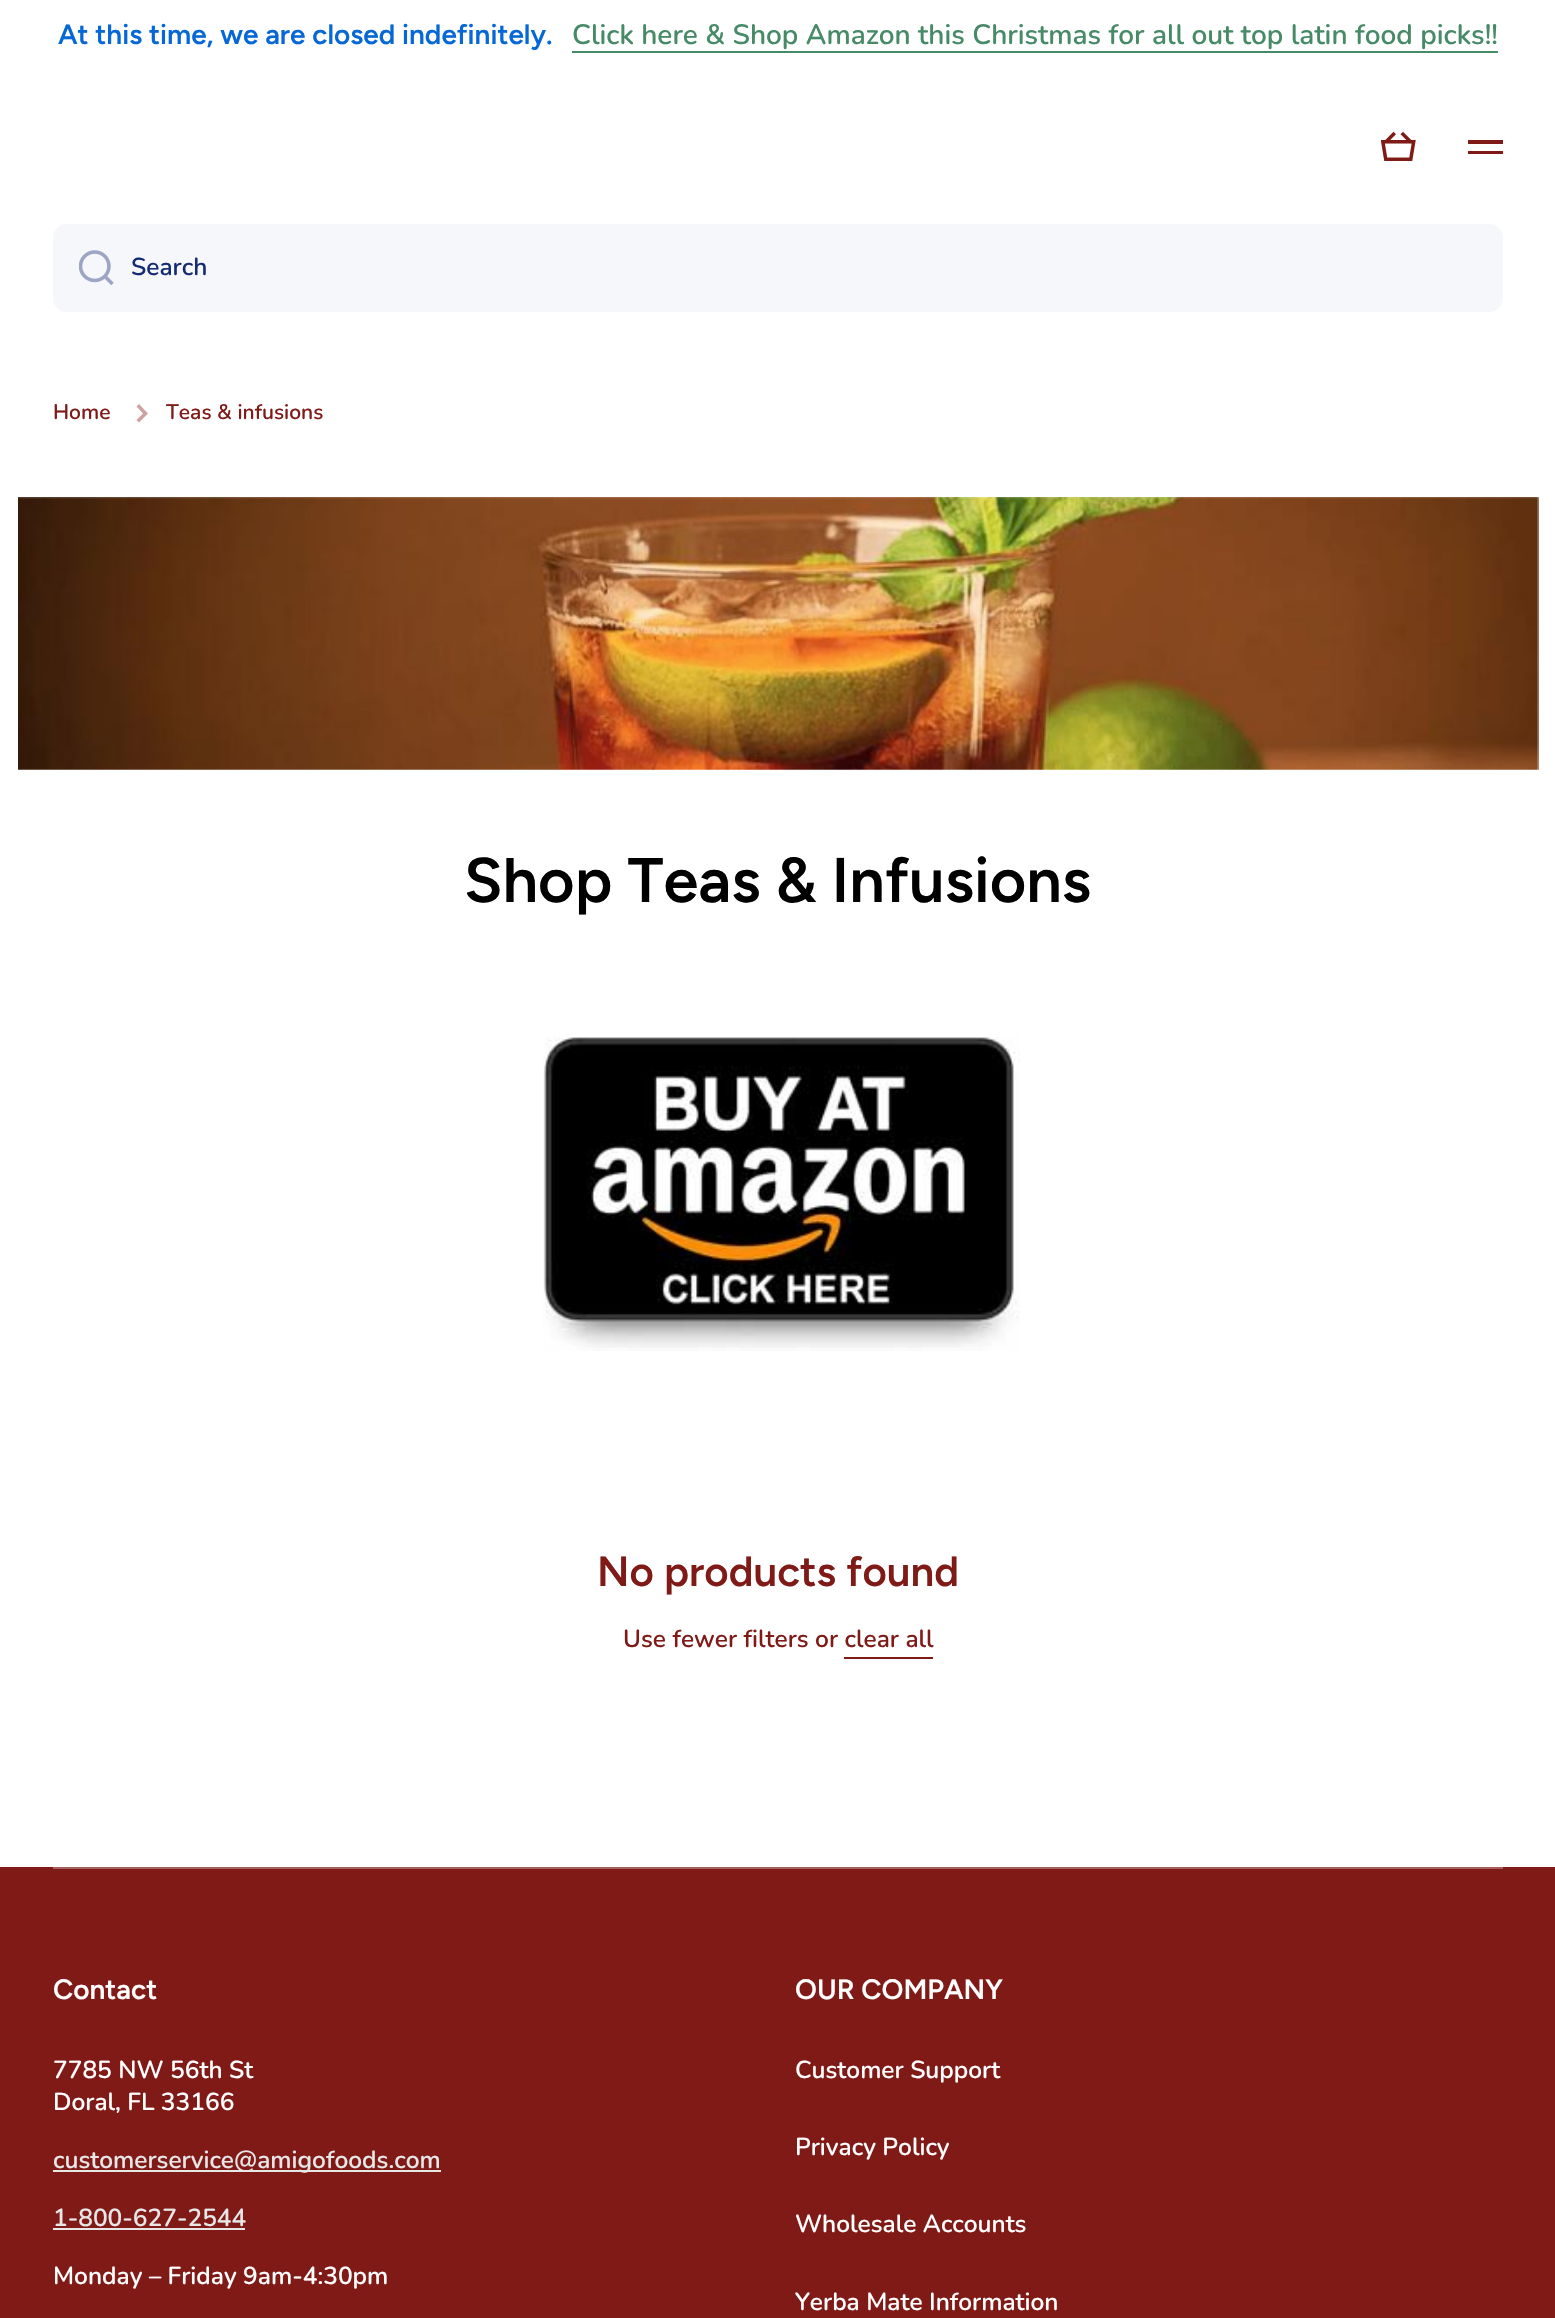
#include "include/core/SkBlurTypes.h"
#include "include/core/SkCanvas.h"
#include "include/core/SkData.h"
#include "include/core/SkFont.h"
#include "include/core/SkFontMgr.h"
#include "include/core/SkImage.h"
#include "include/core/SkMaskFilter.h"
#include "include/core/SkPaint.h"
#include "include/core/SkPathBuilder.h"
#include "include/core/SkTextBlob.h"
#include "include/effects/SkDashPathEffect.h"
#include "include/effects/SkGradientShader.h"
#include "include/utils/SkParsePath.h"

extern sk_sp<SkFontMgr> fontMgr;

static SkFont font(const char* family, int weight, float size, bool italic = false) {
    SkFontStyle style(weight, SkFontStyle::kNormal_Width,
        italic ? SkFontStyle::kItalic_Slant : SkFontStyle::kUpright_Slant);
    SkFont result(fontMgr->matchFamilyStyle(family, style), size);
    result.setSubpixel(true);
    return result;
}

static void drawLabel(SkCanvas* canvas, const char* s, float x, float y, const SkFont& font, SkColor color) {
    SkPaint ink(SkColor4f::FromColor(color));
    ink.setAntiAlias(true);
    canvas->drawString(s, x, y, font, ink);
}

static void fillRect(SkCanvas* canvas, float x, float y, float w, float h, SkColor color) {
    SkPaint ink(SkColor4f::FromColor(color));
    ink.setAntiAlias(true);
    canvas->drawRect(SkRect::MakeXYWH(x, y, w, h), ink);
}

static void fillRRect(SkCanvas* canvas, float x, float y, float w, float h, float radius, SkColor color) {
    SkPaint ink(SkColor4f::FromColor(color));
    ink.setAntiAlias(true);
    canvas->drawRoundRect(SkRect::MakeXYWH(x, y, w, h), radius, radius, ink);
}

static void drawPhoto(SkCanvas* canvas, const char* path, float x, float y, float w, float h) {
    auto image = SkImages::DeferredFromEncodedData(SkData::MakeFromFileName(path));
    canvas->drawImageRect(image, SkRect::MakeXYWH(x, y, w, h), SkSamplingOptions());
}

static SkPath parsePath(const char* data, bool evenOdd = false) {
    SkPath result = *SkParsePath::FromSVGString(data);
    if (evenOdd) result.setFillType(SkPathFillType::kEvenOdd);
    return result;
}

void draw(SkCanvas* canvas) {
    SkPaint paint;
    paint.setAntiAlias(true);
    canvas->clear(0xFFFFFFFF);
    SkFont font1 = font("Figtree", 600, 28);
    drawLabel(canvas, "At this time, we are closed indefinitely.", 58, 44, font1, 0xFF0568D6);
    SkFont font2 = font("Nunito", 600, 28);
    drawLabel(canvas, "Click here & Shop Amazon this Christmas for all out top latin food picks!!", 572, 44, font2, 0xFF468A67);
    fillRect(canvas, 572, 51, 926, 2, 0xFF468A67);
    drawPhoto(canvas, "assets/img1.png", 1381, 131, 35, 30);
    fillRect(canvas, 1468, 140, 35, 4, 0xFF7F1A17);
    fillRect(canvas, 1468, 151, 35, 3, 0xFF7F1A17);
    fillRRect(canvas, 53, 224, 1450, 88, 14, 0xFFF6F7FA);
    drawPhoto(canvas, "assets/img2.png", 79, 250, 35, 35);
    SkFont font3 = font("Nunito", 600, 24.5f);
    drawLabel(canvas, "Search", 131, 275, font3, 0xFF142C73);
    SkFont font4 = font("Nunito", 600, 21);
    drawLabel(canvas, "Home", 53, 419, font4, 0xFF7F1A17);
    paint.setColor(0xFFCCA3A2);
    canvas->drawPath(parsePath("M143 413.5L136.5 406.5L139 404L148 413.5L139 422.5L136.5 420Z", true), paint);
    drawLabel(canvas, "Teas & infusions", 166, 419, font4, 0xFF7F1A17);
    drawPhoto(canvas, "assets/img3.png", 18, 497, 1521, 273);
    SkFont font5 = font("Figtree", 600, 63);
    drawLabel(canvas, "Shop Teas & Infusions", 464, 902, font5, 0xFF000000);
    drawPhoto(canvas, "assets/img4.png", 543, 1037, 477, 314);
    SkFont font6 = font("Figtree", 600, 42);
    drawLabel(canvas, "No products found", 597, 1586, font6, 0xFF7F1A17);
    drawLabel(canvas, "Use fewer filters or clear all", 623, 1647, font3, 0xFF7F1A17);
    fillRect(canvas, 844, 1657, 89, 2, 0xFF7F1A17);
    fillRect(canvas, 0, 1867, 1555, 451, 0xFF7F1A17);
    fillRect(canvas, 53, 1867, 1450, 2, 0xFFA55F5D);
    drawLabel(canvas, "Contact", 53, 1999, font1, 0xFFFFFFFF);
    drawLabel(canvas, "7785 NW 56th St", 53, 2078, font3, 0xFFFFFFFF);
    drawLabel(canvas, "Doral, FL 33166", 53, 2110, font3, 0xFFFFFFFF);
    fillRect(canvas, 53, 2170, 388, 2, 0xFFE7E7E7);
    drawLabel(canvas, "customerservice@amigofoods.com", 53, 2168, font3, 0xFFE7E7E7);
    drawLabel(canvas, "1-800-627-2544", 53, 2226, font3, 0xFFE7E7E7);
    fillRect(canvas, 53, 2228, 192, 2, 0xFFE7E7E7);
    drawLabel(canvas, "Monday – Friday 9am-4:30pm", 53, 2284, font3, 0xFFFFFFFF);
    drawLabel(canvas, "OUR COMPANY", 795, 1999, font1, 0xFFFFFFFF);
    drawLabel(canvas, "Customer Support", 795, 2078, font3, 0xFFFFFFFF);
    drawLabel(canvas, "Privacy Policy", 795, 2155, font3, 0xFFFFFFFF);
    drawLabel(canvas, "Wholesale Accounts", 795, 2232, font3, 0xFFFFFFFF);
    drawLabel(canvas, "Yerba Mate Information", 795, 2310, font3, 0xFFFFFFFF);
}
